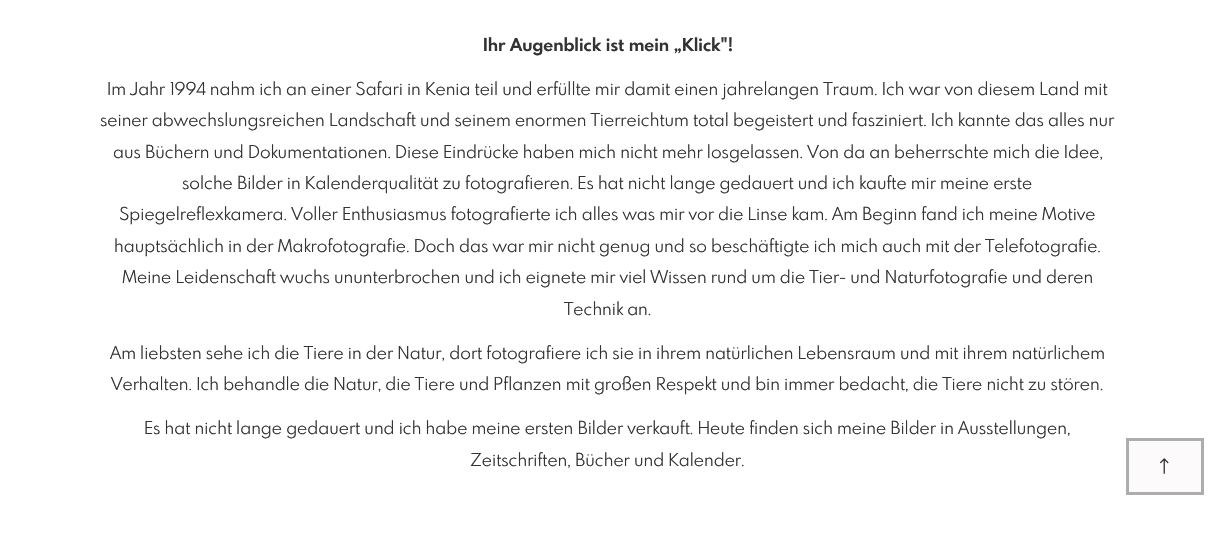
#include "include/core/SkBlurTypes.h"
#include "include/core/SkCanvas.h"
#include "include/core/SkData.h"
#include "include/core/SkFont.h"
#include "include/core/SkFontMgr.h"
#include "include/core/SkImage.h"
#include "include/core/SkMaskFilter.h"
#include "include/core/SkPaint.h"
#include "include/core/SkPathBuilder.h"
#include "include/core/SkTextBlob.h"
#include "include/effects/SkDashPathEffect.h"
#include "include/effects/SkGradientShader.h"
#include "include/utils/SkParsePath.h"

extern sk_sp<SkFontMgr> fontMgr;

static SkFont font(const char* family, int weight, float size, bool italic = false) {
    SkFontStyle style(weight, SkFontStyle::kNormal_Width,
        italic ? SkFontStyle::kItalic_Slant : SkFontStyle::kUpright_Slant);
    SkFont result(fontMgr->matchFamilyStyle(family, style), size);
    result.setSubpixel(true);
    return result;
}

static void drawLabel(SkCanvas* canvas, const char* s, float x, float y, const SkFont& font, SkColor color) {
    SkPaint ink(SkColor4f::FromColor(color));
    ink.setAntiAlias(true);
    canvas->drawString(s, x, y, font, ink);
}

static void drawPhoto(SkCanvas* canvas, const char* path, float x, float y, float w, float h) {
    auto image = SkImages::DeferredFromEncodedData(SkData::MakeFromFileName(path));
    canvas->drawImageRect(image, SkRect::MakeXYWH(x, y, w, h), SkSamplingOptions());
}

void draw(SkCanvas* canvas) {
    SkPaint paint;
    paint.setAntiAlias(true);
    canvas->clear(0xFFFFFFFF);
    SkFont font1 = font("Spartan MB", 700, 17.5f);
    drawLabel(canvas, "Ihr Augenblick ist mein „Klick\"!", 483, 51, font1, 0xFF333333);
    SkFont font2 = font("Spartan MB", 400, 17.5f);
    drawLabel(canvas, "Im Jahr 1994 nahm ich an einer Safari in Kenia teil und erfüllte mir damit einen jahrelangen Traum. Ich war von diesem Land mit", 107, 95, font2, 0xFF333333);
    drawLabel(canvas, "seiner abwechslungsreichen Landschaft und seinem enormen Tierreichtum total begeistert und fasziniert. Ich kannte das alles nur", 100, 126, font2, 0xFF333333);
    drawLabel(canvas, "aus Büchern und Dokumentationen. Diese Eindrücke haben mich nicht mehr losgelassen. Von da an beherrschte mich die Idee,", 113, 158, font2, 0xFF333333);
    drawLabel(canvas, "solche Bilder in Kalenderqualität zu fotografieren. Es hat nicht lange gedauert und ich kaufte mir meine erste", 182, 189, font2, 0xFF333333);
    drawLabel(canvas, "Spiegelreflexkamera. Voller Enthusiasmus fotografierte ich alles was mir vor die Linse kam. Am Beginn fand ich meine Motive", 119, 220, font2, 0xFF333333);
    drawLabel(canvas, "hauptsächlich in der Makrofotografie. Doch das war mir nicht genug und so beschäftigte ich mich auch mit der Telefotografie.", 114, 252, font2, 0xFF333333);
    drawLabel(canvas, "Meine Leidenschaft wuchs ununterbrochen und ich eignete mir viel Wissen rund um die Tier- und Naturfotografie und deren", 122, 283, font2, 0xFF333333);
    drawLabel(canvas, "Technik an.", 564, 315, font2, 0xFF333333);
    drawLabel(canvas, "Am liebsten sehe ich die Tiere in der Natur, dort fotografiere ich sie in ihrem natürlichen Lebensraum und mit ihrem natürlichem", 110, 359, font2, 0xFF333333);
    drawLabel(canvas, "Verhalten. Ich behandle die Natur, die Tiere und Pflanzen mit großen Respekt und bin immer bedacht, die Tiere nicht zu stören.", 111, 390, font2, 0xFF333333);
    drawLabel(canvas, "Es hat nicht lange gedauert und ich habe meine ersten Bilder verkauft. Heute finden sich meine Bilder in Ausstellungen,", 144, 434, font2, 0xFF333333);
    drawLabel(canvas, "Zeitschriften, Bücher und Kalender.", 470, 466, font2, 0xFF333333);
    paint.setColor(0xFFFCFAFA);
    canvas->drawRect(SkRect::MakeXYWH(1127.5f, 439.5f, 75, 54), paint);
    paint.setStroke(true);
    paint.setStrokeWidth(3);
    paint.setColor(0xFFADADAD);
    canvas->drawRect(SkRect::MakeXYWH(1127.5f, 439.5f, 75, 54), paint);
    drawPhoto(canvas, "assets/img1.png", 1159, 458, 10, 16);
}
